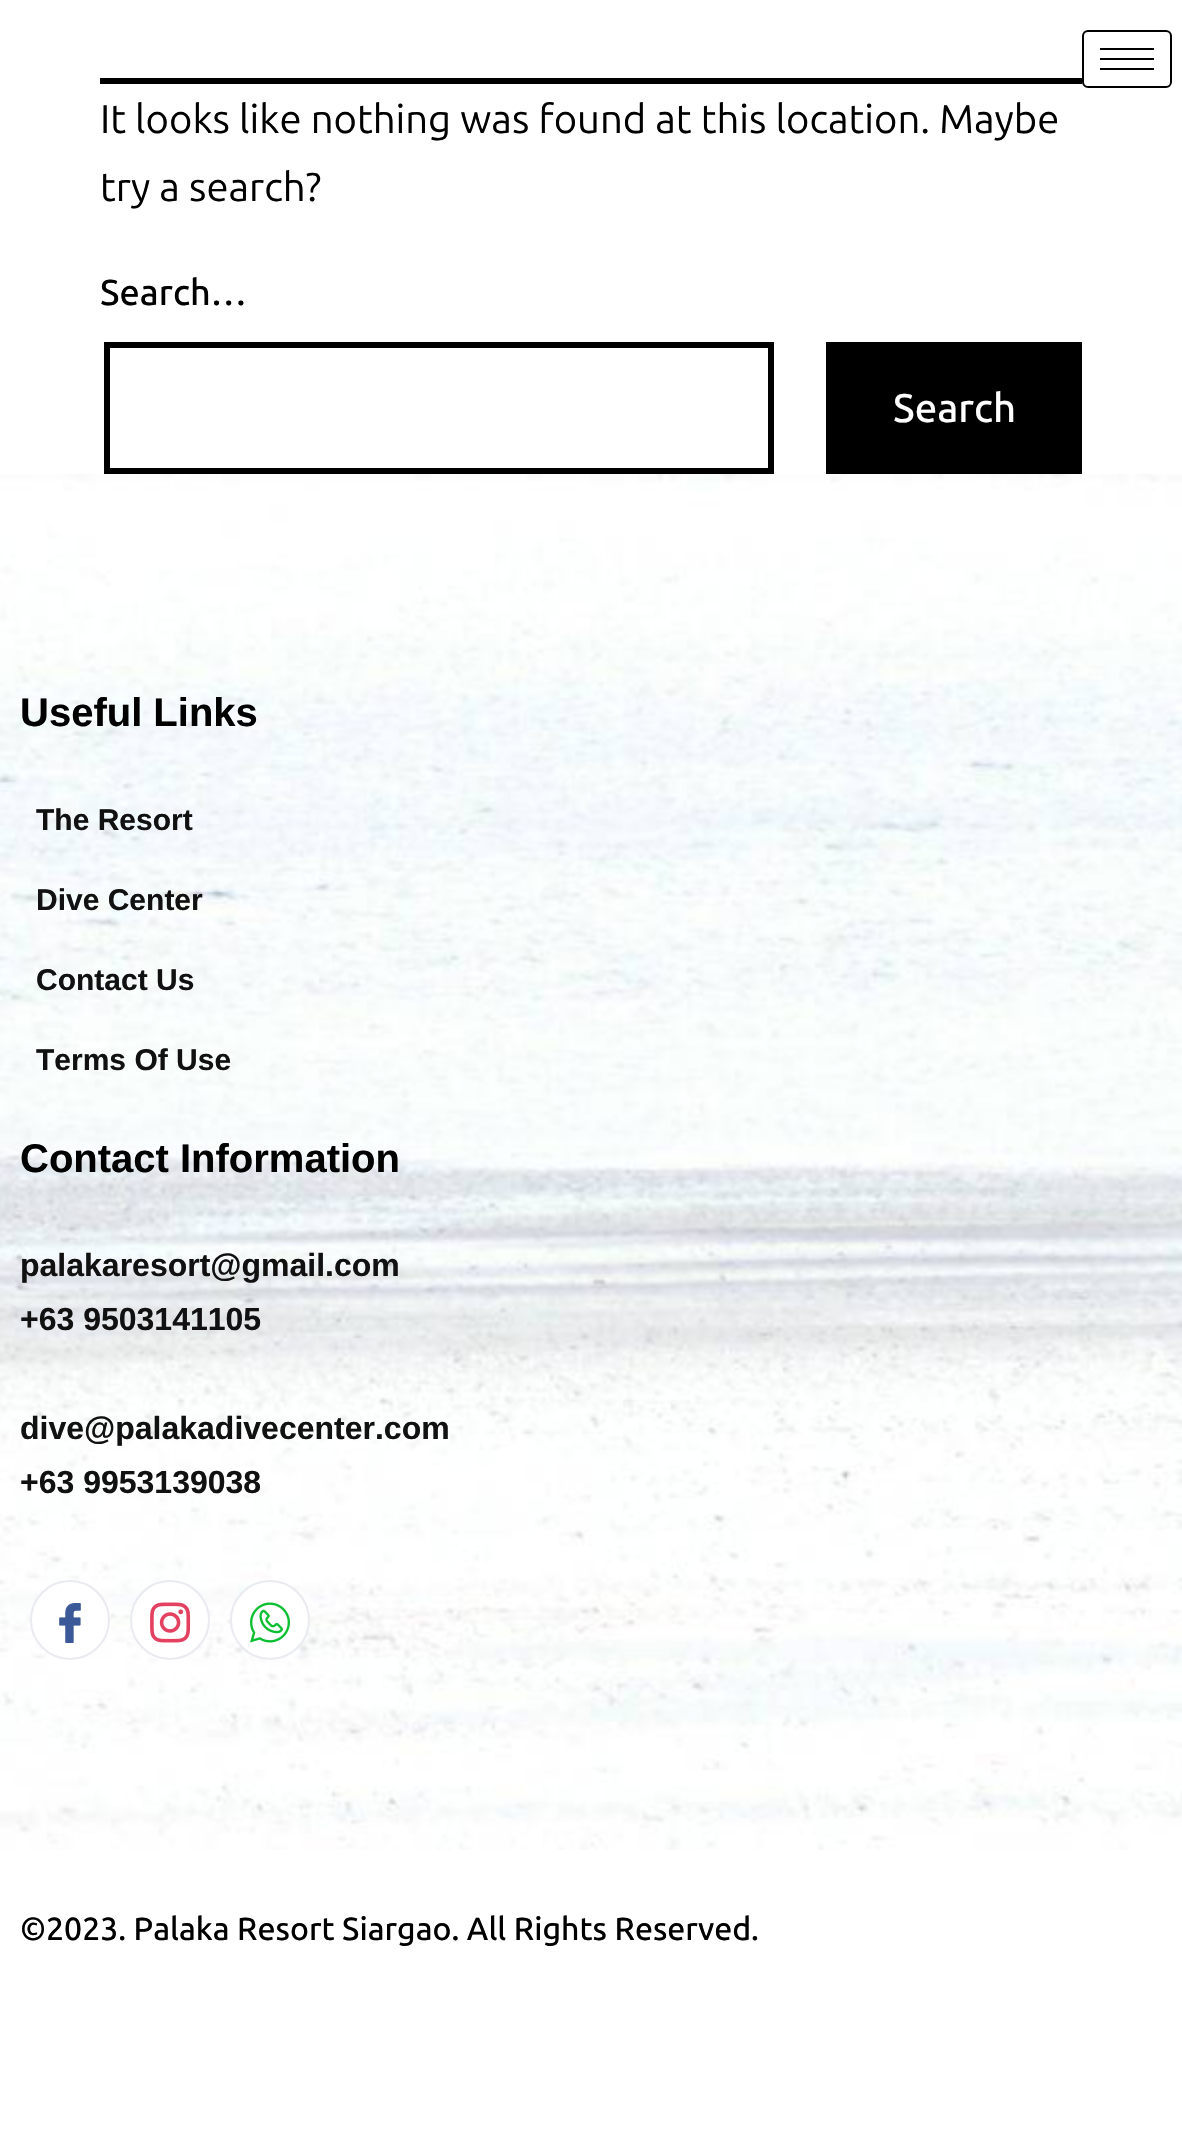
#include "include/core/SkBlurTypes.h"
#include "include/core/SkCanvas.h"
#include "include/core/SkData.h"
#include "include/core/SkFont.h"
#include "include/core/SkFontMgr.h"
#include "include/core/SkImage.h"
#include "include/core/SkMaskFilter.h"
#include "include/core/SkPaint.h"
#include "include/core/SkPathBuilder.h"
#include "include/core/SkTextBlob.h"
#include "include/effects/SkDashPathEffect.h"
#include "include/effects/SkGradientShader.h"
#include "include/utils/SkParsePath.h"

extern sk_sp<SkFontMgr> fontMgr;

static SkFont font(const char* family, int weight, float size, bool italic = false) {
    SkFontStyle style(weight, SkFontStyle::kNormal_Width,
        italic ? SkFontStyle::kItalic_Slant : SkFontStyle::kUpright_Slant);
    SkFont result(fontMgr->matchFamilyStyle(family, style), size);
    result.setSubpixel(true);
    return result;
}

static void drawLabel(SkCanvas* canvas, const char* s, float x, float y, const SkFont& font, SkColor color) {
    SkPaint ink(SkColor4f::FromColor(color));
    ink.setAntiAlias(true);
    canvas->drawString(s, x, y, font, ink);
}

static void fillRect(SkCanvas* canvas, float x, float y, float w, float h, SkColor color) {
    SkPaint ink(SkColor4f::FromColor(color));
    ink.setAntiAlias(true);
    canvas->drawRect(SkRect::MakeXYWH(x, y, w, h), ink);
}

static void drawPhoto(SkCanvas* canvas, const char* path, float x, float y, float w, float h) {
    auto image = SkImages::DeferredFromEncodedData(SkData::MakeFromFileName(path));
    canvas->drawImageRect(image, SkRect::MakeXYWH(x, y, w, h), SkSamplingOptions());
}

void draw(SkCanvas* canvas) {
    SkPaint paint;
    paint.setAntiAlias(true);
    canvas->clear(0xFFFFFFFF);
    fillRect(canvas, 100, 78, 982, 6, 0xFF000000);
    paint.setStroke(true);
    paint.setStrokeWidth(2);
    paint.setColor(0xFF000000);
    canvas->drawRoundRect(SkRect::MakeXYWH(1083, 31, 88, 56), 5, 5, paint);
    fillRect(canvas, 1100, 48, 54, 2, 0xFF000000);
    fillRect(canvas, 1100, 58, 54, 2, 0xFF000000);
    fillRect(canvas, 1100, 68, 54, 2, 0xFF000000);
    SkFont font1 = font("Ubuntu", 400, 40);
    drawLabel(canvas, "It looks like nothing was found at this location. Maybe", 100, 133, font1, 0xFF000000);
    drawLabel(canvas, "try a search?", 100, 201, font1, 0xFF000000);
    SkFont font2 = font("Ubuntu", 500, 36);
    drawLabel(canvas, "Search…", 100, 305, font2, 0xFF000000);
    paint.setStrokeWidth(6);
    canvas->drawRect(SkRect::MakeXYWH(107, 345, 664, 126), paint);
    fillRect(canvas, 826, 342, 256, 132, 0xFF000000);
    SkFont font3 = font("Ubuntu", 500, 40);
    drawLabel(canvas, "Search", 893, 422, font3, 0xFFFFFFFF);
    drawPhoto(canvas, "assets/img1.png", 0, 474, 1182, 1376);
    SkFont font4 = font("Liberation Sans", 700, 40);
    drawLabel(canvas, "Useful Links", 20, 726, font4, 0xFF000000);
    SkFont font5 = font("Liberation Sans", 700, 30);
    drawLabel(canvas, "The Resort", 36, 830, font5, 0xFF111111);
    drawLabel(canvas, "Dive Center", 36, 910, font5, 0xFF111111);
    drawLabel(canvas, "Contact Us", 36, 990, font5, 0xFF111111);
    drawLabel(canvas, "Terms Of Use", 36, 1070, font5, 0xFF111111);
    drawLabel(canvas, "Contact Information", 20, 1172, font4, 0xFF000000);
    SkFont font6 = font("Liberation Sans", 700, 32);
    drawLabel(canvas, "palakaresort@gmail.com", 20, 1276, font6, 0xFF111111);
    drawLabel(canvas, "+63 9503141105", 20, 1330, font6, 0xFF111111);
    drawLabel(canvas, "dive@palakadivecenter.com", 20, 1439, font6, 0xFF111111);
    drawLabel(canvas, "+63 9953139038", 20, 1493, font6, 0xFF111111);
    paint.setStroke(false);
    paint.setColor(0xFFFFFFFF);
    canvas->drawCircle(70, 1620, 39, paint);
    paint.setStroke(true);
    paint.setStrokeWidth(2);
    paint.setColor(0xFFEAEBF1);
    canvas->drawCircle(70, 1620, 39, paint);
    drawPhoto(canvas, "assets/img2.png", 59, 1603, 22, 40);
    paint.setStroke(false);
    paint.setColor(0xFFFFFFFF);
    canvas->drawCircle(170, 1620, 39, paint);
    paint.setStroke(true);
    paint.setColor(0xFFEAEBF1);
    canvas->drawCircle(170, 1620, 39, paint);
    drawPhoto(canvas, "assets/img3.png", 150, 1602, 41, 41);
    paint.setStroke(false);
    paint.setColor(0xFFFFFFFF);
    canvas->drawCircle(270, 1620, 39, paint);
    paint.setStroke(true);
    paint.setColor(0xFFEAEBF1);
    canvas->drawCircle(270, 1620, 39, paint);
    drawPhoto(canvas, "assets/img4.png", 250, 1602, 40, 41);
    SkFont font7 = font("Ubuntu", 500, 32);
    drawLabel(canvas, "©2023. Palaka Resort Siargao. All Rights Reserved.", 20, 1940, font7, 0xFF000000);
}
